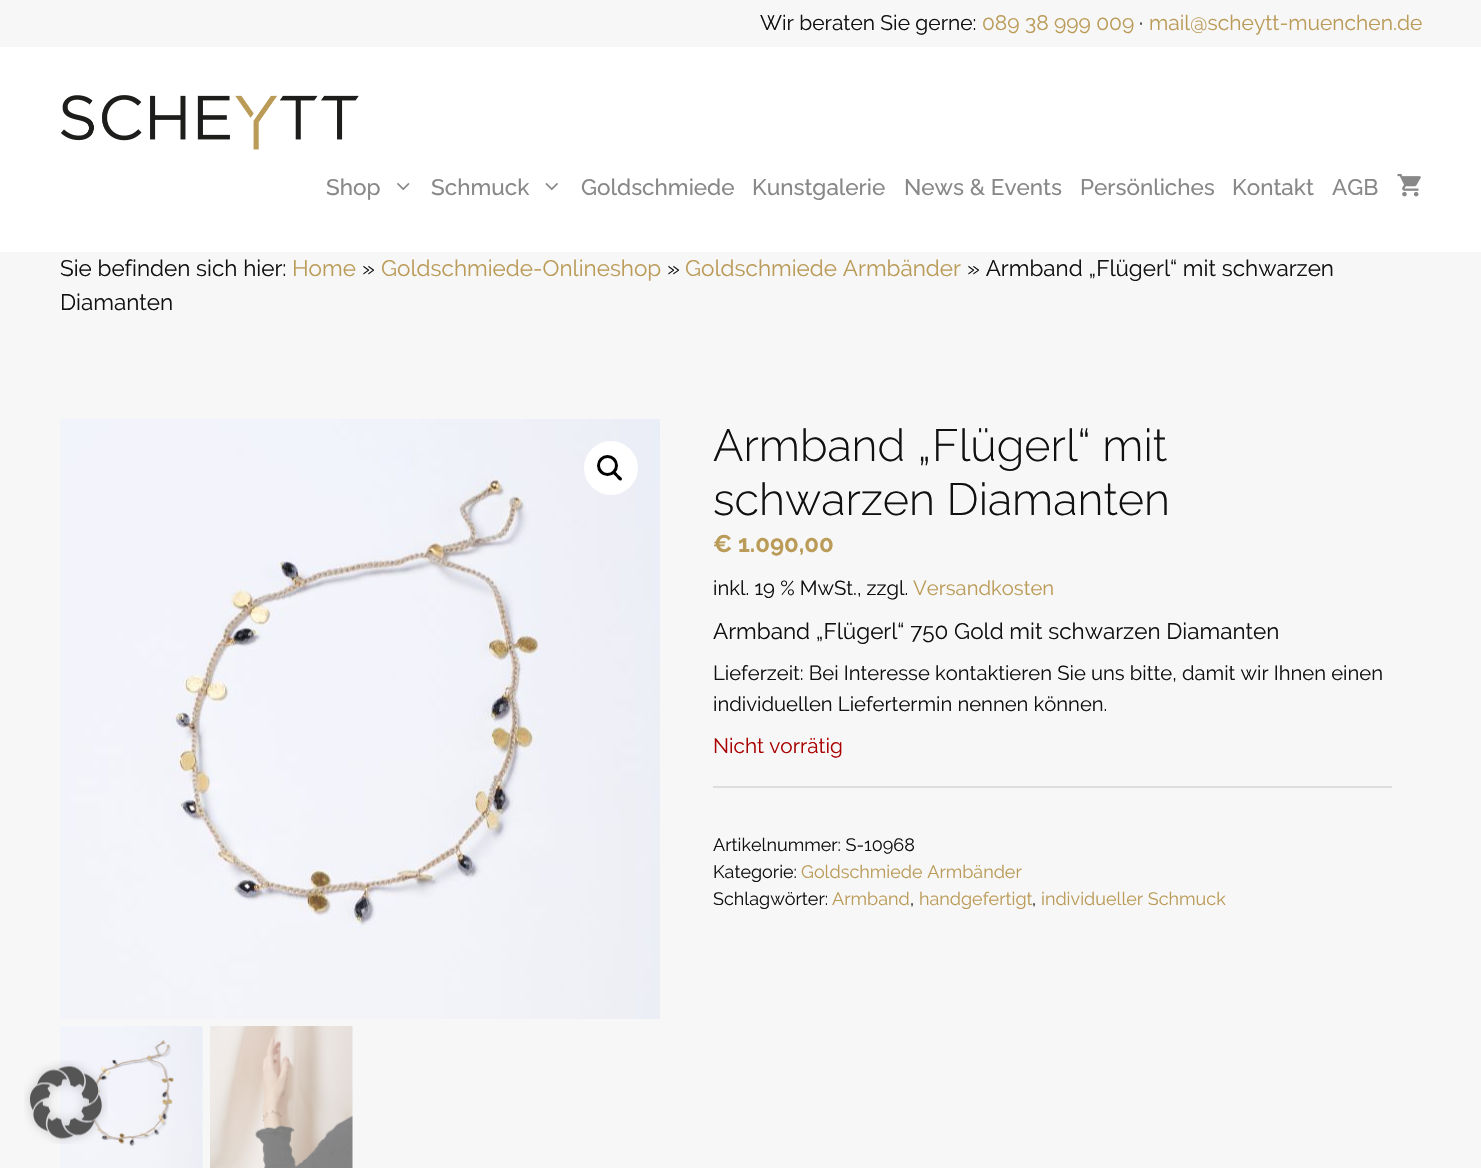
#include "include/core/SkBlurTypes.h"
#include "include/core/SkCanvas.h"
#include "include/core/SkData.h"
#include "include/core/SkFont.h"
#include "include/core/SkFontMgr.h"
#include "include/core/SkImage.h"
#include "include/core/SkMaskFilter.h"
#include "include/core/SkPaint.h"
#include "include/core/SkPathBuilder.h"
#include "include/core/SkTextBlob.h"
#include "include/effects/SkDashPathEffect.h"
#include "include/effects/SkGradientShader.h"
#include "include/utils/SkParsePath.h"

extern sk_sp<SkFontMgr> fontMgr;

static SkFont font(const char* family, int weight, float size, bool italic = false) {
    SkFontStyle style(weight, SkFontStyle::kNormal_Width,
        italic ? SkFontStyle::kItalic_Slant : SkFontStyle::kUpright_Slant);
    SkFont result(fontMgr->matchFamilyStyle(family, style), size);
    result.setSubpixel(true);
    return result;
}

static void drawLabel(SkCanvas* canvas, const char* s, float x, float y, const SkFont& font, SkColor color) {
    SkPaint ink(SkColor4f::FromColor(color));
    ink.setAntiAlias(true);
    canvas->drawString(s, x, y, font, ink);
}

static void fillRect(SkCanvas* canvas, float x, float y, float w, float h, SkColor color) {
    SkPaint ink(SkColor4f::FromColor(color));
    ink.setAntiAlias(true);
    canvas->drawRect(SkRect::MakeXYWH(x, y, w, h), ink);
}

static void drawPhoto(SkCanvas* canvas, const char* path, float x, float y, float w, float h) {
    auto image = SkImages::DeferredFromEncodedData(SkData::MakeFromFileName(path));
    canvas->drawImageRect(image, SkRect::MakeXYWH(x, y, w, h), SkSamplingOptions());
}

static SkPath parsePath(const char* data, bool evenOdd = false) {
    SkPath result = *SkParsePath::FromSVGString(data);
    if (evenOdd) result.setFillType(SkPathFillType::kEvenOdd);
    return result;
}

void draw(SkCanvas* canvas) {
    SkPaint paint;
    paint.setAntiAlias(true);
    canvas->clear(0xFFF7F7F7);
    SkFont font1 = font("Raleway", 400, 21);
    drawLabel(canvas, "Wir beraten Sie gerne:", 760, 30, font1, 0xFF111111);
    drawLabel(canvas, "089 38 999 009", 982, 30, font1, 0xFFBB9B58);
    drawLabel(canvas, "·", 1139, 30, font1, 0xFF111111);
    drawLabel(canvas, "mail@scheytt-muenchen.de", 1149, 30, font1, 0xFFBB9B58);
    fillRect(canvas, 0, 47, 1481, 205, 0xFFFFFFFF);
    drawPhoto(canvas, "assets/img1.png", 61, 95, 298, 55);
    SkFont font2 = font("Raleway", 500, 22.5f);
    drawLabel(canvas, "Shop", 326, 195, font2, 0xFF888888);
    drawPhoto(canvas, "assets/img2.png", 397, 183, 13, 8);
    drawLabel(canvas, "Schmuck", 431, 195, font2, 0xFF888888);
    drawPhoto(canvas, "assets/img3.png", 545, 183, 13, 8);
    drawLabel(canvas, "Goldschmiede", 581, 195, font2, 0xFF888888);
    drawLabel(canvas, "Kunstgalerie", 752, 195, font2, 0xFF888888);
    drawLabel(canvas, "News & Events", 904, 195, font2, 0xFF888888);
    drawLabel(canvas, "Persönliches", 1080, 195, font2, 0xFF888888);
    drawLabel(canvas, "Kontakt", 1232, 195, font2, 0xFF888888);
    drawLabel(canvas, "AGB", 1332, 195, font2, 0xFF888888);
    drawPhoto(canvas, "assets/img4.png", 1397, 173, 24, 24);
    SkFont font3 = font("Raleway", 400, 22.5f);
    drawLabel(canvas, "Sie befinden sich hier:", 60, 276, font3, 0xFF111111);
    drawLabel(canvas, "Home", 292, 276, font3, 0xFFBB9B58);
    drawLabel(canvas, "»", 362, 276, font3, 0xFF111111);
    drawLabel(canvas, "Goldschmiede-Onlineshop", 381, 276, font3, 0xFFBB9B58);
    drawLabel(canvas, "»", 667, 276, font3, 0xFF111111);
    drawLabel(canvas, "Goldschmiede Armbänder", 685, 276, font3, 0xFFBB9B58);
    drawLabel(canvas, "» Armband „Flügerl“ mit schwarzen", 967, 276, font3, 0xFF111111);
    drawLabel(canvas, "Diamanten", 60, 310, font3, 0xFF111111);
    drawPhoto(canvas, "assets/img5.png", 60, 419, 600, 600);
    paint.setColor(0xFFFFFFFF);
    canvas->drawCircle(611, 468, 27, paint);
    paint.setStroke(true);
    paint.setStrokeWidth(3);
    paint.setColor(0xFF000000);
    canvas->drawCircle(607.5f, 465.5f, 9, paint);
    paint.setStroke(false);
    canvas->drawPath(parsePath("M613 471.5C615 470 617.5 474 618.5 475C619.5 476 623.5 478.5 621.5 480C620 482 617 478 616.5 477C615.5 476 611.5 473.5 613 471.5Z"), paint);
    drawPhoto(canvas, "assets/img6.png", 60, 1026, 143, 142);
    drawPhoto(canvas, "assets/img7.png", 210, 1026, 143, 142);
    SkFont font4 = font("Raleway", 300, 45);
    drawLabel(canvas, "Armband „Flügerl“ mit", 713, 461, font4, 0xFF111111);
    drawLabel(canvas, "schwarzen Diamanten", 713, 515, font4, 0xFF111111);
    SkFont font5 = font("Raleway", 700, 24);
    drawLabel(canvas, "€ 1.090,00", 713, 552, font5, 0xFFBB9B58);
    SkFont font6 = font("Raleway", 400, 20.25f);
    drawLabel(canvas, "inkl. 19 % MwSt., zzgl.", 713, 595, font6, 0xFF111111);
    drawLabel(canvas, "Versandkosten", 913, 595, font6, 0xFFBB9B58);
    drawLabel(canvas, "Armband „Flügerl“ 750 Gold mit schwarzen Diamanten", 713, 639, font3, 0xFF111111);
    drawLabel(canvas, "Lieferzeit: Bei Interesse kontaktieren Sie uns bitte, damit wir Ihnen einen", 713, 680, font6, 0xFF111111);
    drawLabel(canvas, "individuellen Liefertermin nennen können.", 713, 711, font6, 0xFF111111);
    SkFont font7 = font("Raleway", 400, 20.75f);
    drawLabel(canvas, "Nicht vorrätig", 713, 753, font7, 0xFFAA0000);
    fillRect(canvas, 713, 786, 679, 2, 0xFFDEDEDE);
    SkFont font8 = font("Raleway", 400, 18);
    drawLabel(canvas, "Artikelnummer: S-10968", 713, 851, font8, 0xFF111111);
    drawLabel(canvas, "Kategorie:", 713, 878, font8, 0xFF111111);
    drawLabel(canvas, "Goldschmiede Armbänder", 801, 878, font8, 0xFFBB9B58);
    drawLabel(canvas, "Schlagwörter:", 713, 905, font8, 0xFF111111);
    drawLabel(canvas, "Armband", 832, 905, font8, 0xFFBB9B58);
    drawLabel(canvas, ",", 910, 905, font8, 0xFF111111);
    drawLabel(canvas, "handgefertigt", 919, 905, font8, 0xFFBB9B58);
    drawLabel(canvas, ",", 1032, 905, font8, 0xFF111111);
    drawLabel(canvas, "individueller Schmuck", 1041, 905, font8, 0xFFBB9B58);
    drawPhoto(canvas, "assets/img8.png", 24, 1060, 84, 84);
}
